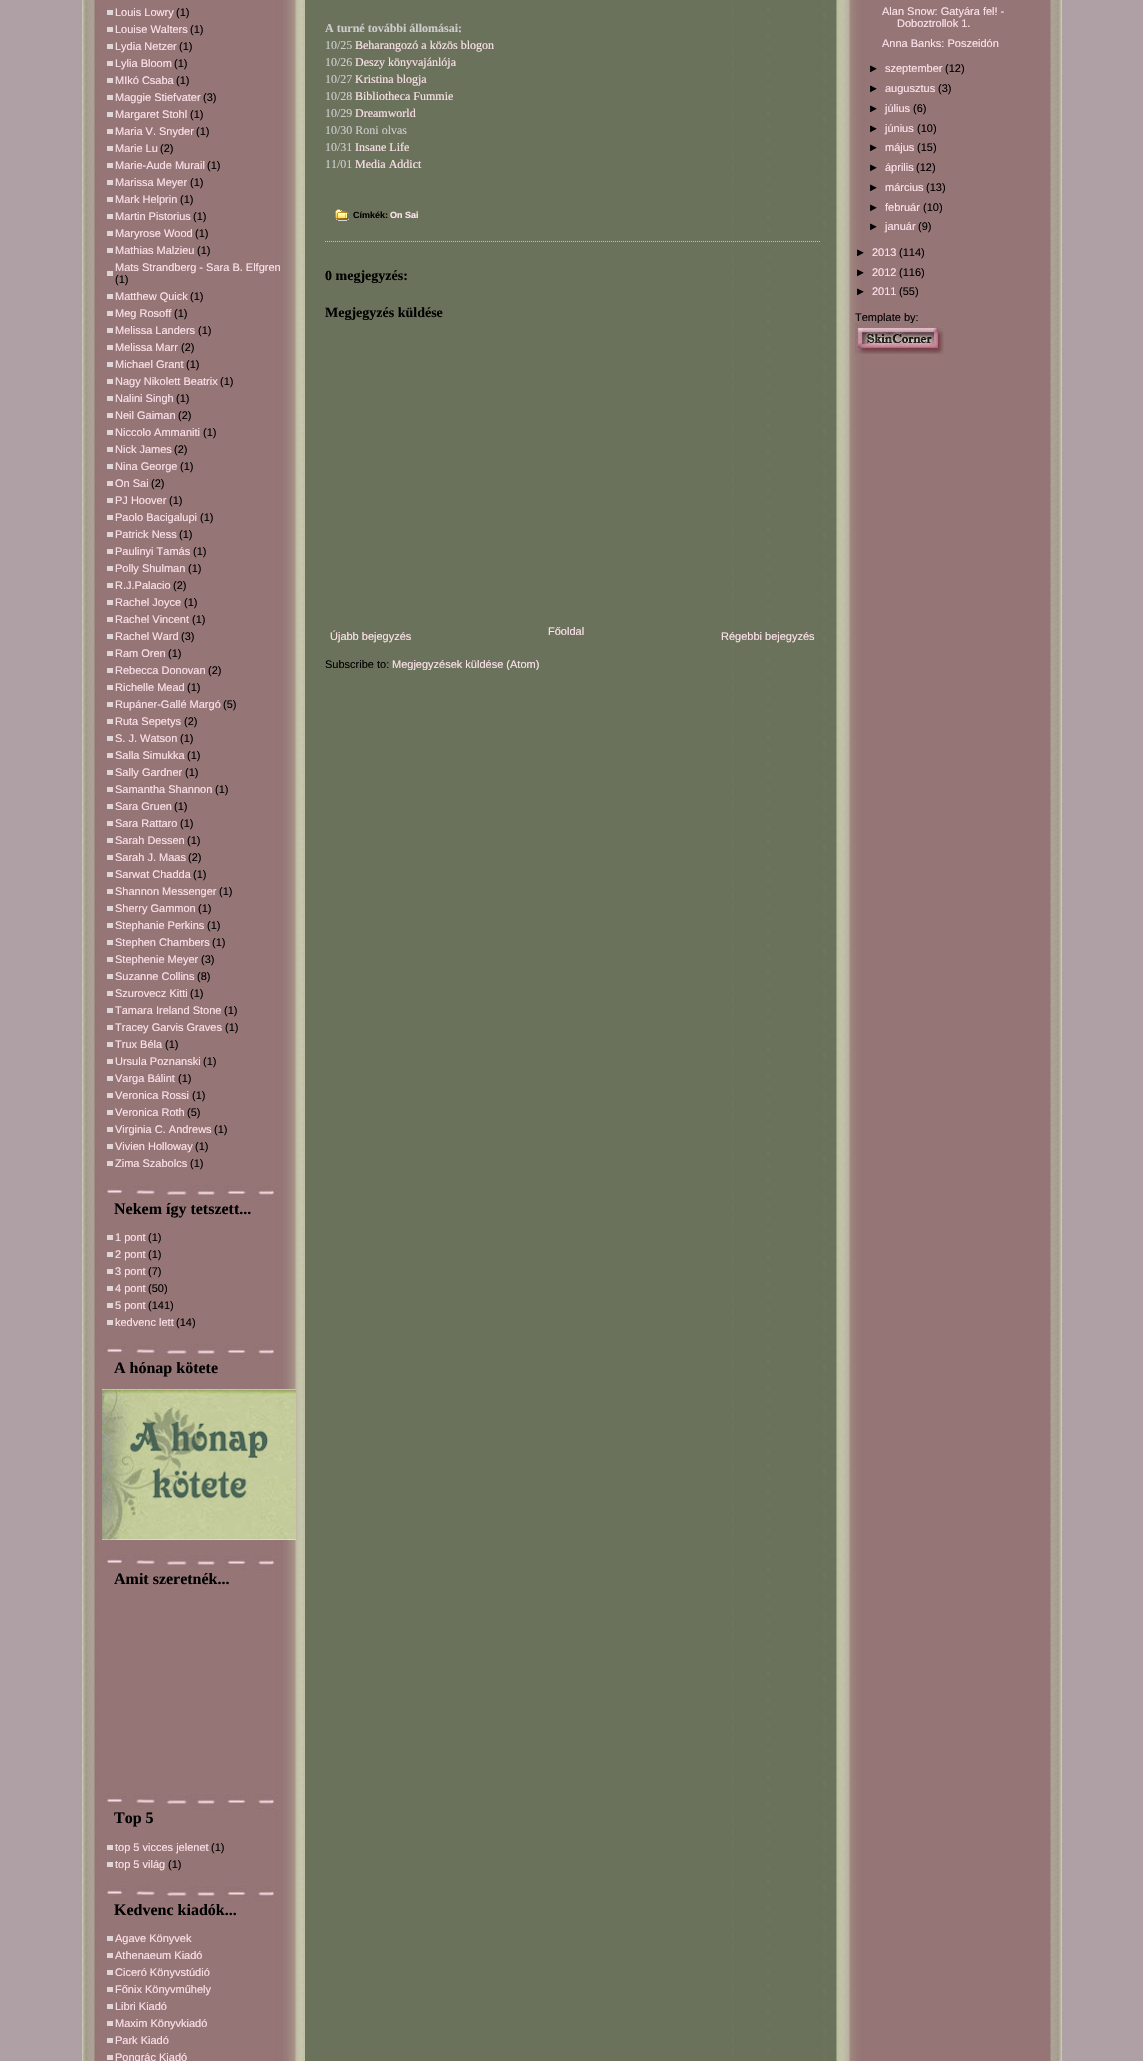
#include "include/core/SkBlurTypes.h"
#include "include/core/SkCanvas.h"
#include "include/core/SkData.h"
#include "include/core/SkFont.h"
#include "include/core/SkFontMgr.h"
#include "include/core/SkImage.h"
#include "include/core/SkMaskFilter.h"
#include "include/core/SkPaint.h"
#include "include/core/SkPathBuilder.h"
#include "include/core/SkTextBlob.h"
#include "include/effects/SkDashPathEffect.h"
#include "include/effects/SkGradientShader.h"
#include "include/utils/SkParsePath.h"

extern sk_sp<SkFontMgr> fontMgr;

static SkFont font(const char* family, int weight, float size, bool italic = false) {
    SkFontStyle style(weight, SkFontStyle::kNormal_Width,
        italic ? SkFontStyle::kItalic_Slant : SkFontStyle::kUpright_Slant);
    SkFont result(fontMgr->matchFamilyStyle(family, style), size);
    result.setSubpixel(true);
    return result;
}

static void drawLabel(SkCanvas* canvas, const char* s, float x, float y, const SkFont& font, SkColor color) {
    SkPaint ink(SkColor4f::FromColor(color));
    ink.setAntiAlias(true);
    canvas->drawString(s, x, y, font, ink);
}

static void fillRect(SkCanvas* canvas, float x, float y, float w, float h, SkColor color) {
    SkPaint ink(SkColor4f::FromColor(color));
    ink.setAntiAlias(true);
    canvas->drawRect(SkRect::MakeXYWH(x, y, w, h), ink);
}

static void drawPhoto(SkCanvas* canvas, const char* path, float x, float y, float w, float h) {
    auto image = SkImages::DeferredFromEncodedData(SkData::MakeFromFileName(path));
    canvas->drawImageRect(image, SkRect::MakeXYWH(x, y, w, h), SkSamplingOptions());
}

static SkPath parsePath(const char* data, bool evenOdd = false) {
    SkPath result = *SkParsePath::FromSVGString(data);
    if (evenOdd) result.setFillType(SkPathFillType::kEvenOdd);
    return result;
}

void draw(SkCanvas* canvas) {
    SkPaint paint;
    paint.setAntiAlias(true);
    canvas->clear(0xFFAEA0A4);
    drawPhoto(canvas, "assets/img1.png", 82, 0, 980, 2061);
    fillRect(canvas, 107, 10, 6, 5, 0xFFDED5D6);
    SkFont font1 = font("Liberation Sans", 400, 11);
    drawLabel(canvas, "Louis Lowry", 115, 16, font1, 0xFFFDE2EB);
    drawLabel(canvas, "(1)", 176, 16, font1, 0xFF000000);
    fillRect(canvas, 107, 27, 6, 5, 0xFFDED5D6);
    drawLabel(canvas, "Louise Walters", 115, 33, font1, 0xFFFDE2EB);
    drawLabel(canvas, "(1)", 190, 33, font1, 0xFF000000);
    fillRect(canvas, 107, 44, 6, 5, 0xFFDED5D6);
    drawLabel(canvas, "Lydia Netzer", 115, 50, font1, 0xFFFDE2EB);
    drawLabel(canvas, "(1)", 179, 50, font1, 0xFF000000);
    fillRect(canvas, 107, 61, 6, 5, 0xFFDED5D6);
    drawLabel(canvas, "Lylia Bloom", 115, 67, font1, 0xFFFDE2EB);
    drawLabel(canvas, "(1)", 174, 67, font1, 0xFF000000);
    fillRect(canvas, 107, 78, 6, 5, 0xFFDED5D6);
    drawLabel(canvas, "MIkó Csaba", 115, 84, font1, 0xFFFDE2EB);
    drawLabel(canvas, "(1)", 176, 84, font1, 0xFF000000);
    fillRect(canvas, 107, 95, 6, 5, 0xFFDED5D6);
    drawLabel(canvas, "Maggie Stiefvater", 115, 101, font1, 0xFFFDE2EB);
    drawLabel(canvas, "(3)", 203, 101, font1, 0xFF000000);
    fillRect(canvas, 107, 112, 6, 5, 0xFFDED5D6);
    drawLabel(canvas, "Margaret Stohl", 115, 118, font1, 0xFFFDE2EB);
    drawLabel(canvas, "(1)", 190, 118, font1, 0xFF000000);
    fillRect(canvas, 107, 129, 6, 5, 0xFFDED5D6);
    drawLabel(canvas, "Maria V. Snyder", 115, 135, font1, 0xFFFDE2EB);
    drawLabel(canvas, "(1)", 196, 135, font1, 0xFF000000);
    fillRect(canvas, 107, 146, 6, 5, 0xFFDED5D6);
    drawLabel(canvas, "Marie Lu", 115, 152, font1, 0xFFFDE2EB);
    drawLabel(canvas, "(2)", 160, 152, font1, 0xFF000000);
    fillRect(canvas, 107, 163, 6, 5, 0xFFDED5D6);
    drawLabel(canvas, "Marie-Aude Murail", 115, 169, font1, 0xFFFDE2EB);
    drawLabel(canvas, "(1)", 207, 169, font1, 0xFF000000);
    fillRect(canvas, 107, 180, 6, 5, 0xFFDED5D6);
    drawLabel(canvas, "Marissa Meyer", 115, 186, font1, 0xFFFDE2EB);
    drawLabel(canvas, "(1)", 190, 186, font1, 0xFF000000);
    fillRect(canvas, 107, 197, 6, 5, 0xFFDED5D6);
    drawLabel(canvas, "Mark Helprin", 115, 203, font1, 0xFFFDE2EB);
    drawLabel(canvas, "(1)", 180, 203, font1, 0xFF000000);
    fillRect(canvas, 107, 214, 6, 5, 0xFFDED5D6);
    drawLabel(canvas, "Martin Pistorius", 115, 220, font1, 0xFFFDE2EB);
    drawLabel(canvas, "(1)", 193, 220, font1, 0xFF000000);
    fillRect(canvas, 107, 231, 6, 5, 0xFFDED5D6);
    drawLabel(canvas, "Maryrose Wood", 115, 237, font1, 0xFFFDE2EB);
    drawLabel(canvas, "(1)", 195, 237, font1, 0xFF000000);
    fillRect(canvas, 107, 248, 6, 5, 0xFFDED5D6);
    drawLabel(canvas, "Mathias Malzieu", 115, 254, font1, 0xFFFDE2EB);
    drawLabel(canvas, "(1)", 197, 254, font1, 0xFF000000);
    fillRect(canvas, 107, 271, 6, 5, 0xFFDED5D6);
    drawLabel(canvas, "Mats Strandberg - Sara B. Elfgren", 115, 271, font1, 0xFFFDE2EB);
    drawLabel(canvas, "(1)", 115, 283, font1, 0xFF000000);
    fillRect(canvas, 107, 294, 6, 5, 0xFFDED5D6);
    drawLabel(canvas, "Matthew Quick", 115, 300, font1, 0xFFFDE2EB);
    drawLabel(canvas, "(1)", 190, 300, font1, 0xFF000000);
    fillRect(canvas, 107, 311, 6, 5, 0xFFDED5D6);
    drawLabel(canvas, "Meg Rosoff", 115, 317, font1, 0xFFFDE2EB);
    drawLabel(canvas, "(1)", 174, 317, font1, 0xFF000000);
    fillRect(canvas, 107, 328, 6, 5, 0xFFDED5D6);
    drawLabel(canvas, "Melissa Landers", 115, 334, font1, 0xFFFDE2EB);
    drawLabel(canvas, "(1)", 198, 334, font1, 0xFF000000);
    fillRect(canvas, 107, 345, 6, 5, 0xFFDED5D6);
    drawLabel(canvas, "Melissa Marr", 115, 351, font1, 0xFFFDE2EB);
    drawLabel(canvas, "(2)", 181, 351, font1, 0xFF000000);
    fillRect(canvas, 107, 362, 6, 5, 0xFFDED5D6);
    drawLabel(canvas, "Michael Grant", 115, 368, font1, 0xFFFDE2EB);
    drawLabel(canvas, "(1)", 186, 368, font1, 0xFF000000);
    fillRect(canvas, 107, 379, 6, 5, 0xFFDED5D6);
    drawLabel(canvas, "Nagy Nikolett Beatrix", 115, 385, font1, 0xFFFDE2EB);
    drawLabel(canvas, "(1)", 220, 385, font1, 0xFF000000);
    fillRect(canvas, 107, 396, 6, 5, 0xFFDED5D6);
    drawLabel(canvas, "Nalini Singh", 115, 402, font1, 0xFFFDE2EB);
    drawLabel(canvas, "(1)", 176, 402, font1, 0xFF000000);
    fillRect(canvas, 107, 413, 6, 5, 0xFFDED5D6);
    drawLabel(canvas, "Neil Gaiman", 115, 419, font1, 0xFFFDE2EB);
    drawLabel(canvas, "(2)", 178, 419, font1, 0xFF000000);
    fillRect(canvas, 107, 430, 6, 5, 0xFFDED5D6);
    drawLabel(canvas, "Niccolo Ammaniti", 115, 436, font1, 0xFFFDE2EB);
    drawLabel(canvas, "(1)", 203, 436, font1, 0xFF000000);
    fillRect(canvas, 107, 447, 6, 5, 0xFFDED5D6);
    drawLabel(canvas, "Nick James", 115, 453, font1, 0xFFFDE2EB);
    drawLabel(canvas, "(2)", 174, 453, font1, 0xFF000000);
    fillRect(canvas, 107, 464, 6, 5, 0xFFDED5D6);
    drawLabel(canvas, "Nina George", 115, 470, font1, 0xFFFDE2EB);
    drawLabel(canvas, "(1)", 180, 470, font1, 0xFF000000);
    fillRect(canvas, 107, 481, 6, 5, 0xFFDED5D6);
    drawLabel(canvas, "On Sai", 115, 487, font1, 0xFFFDE2EB);
    drawLabel(canvas, "(2)", 151, 487, font1, 0xFF000000);
    fillRect(canvas, 107, 498, 6, 5, 0xFFDED5D6);
    drawLabel(canvas, "PJ Hoover", 115, 504, font1, 0xFFFDE2EB);
    drawLabel(canvas, "(1)", 169, 504, font1, 0xFF000000);
    fillRect(canvas, 107, 515, 6, 5, 0xFFDED5D6);
    drawLabel(canvas, "Paolo Bacigalupi", 115, 521, font1, 0xFFFDE2EB);
    drawLabel(canvas, "(1)", 200, 521, font1, 0xFF000000);
    fillRect(canvas, 107, 532, 6, 5, 0xFFDED5D6);
    drawLabel(canvas, "Patrick Ness", 115, 538, font1, 0xFFFDE2EB);
    drawLabel(canvas, "(1)", 179, 538, font1, 0xFF000000);
    fillRect(canvas, 107, 549, 6, 5, 0xFFDED5D6);
    drawLabel(canvas, "Paulinyi Tamás", 115, 555, font1, 0xFFFDE2EB);
    drawLabel(canvas, "(1)", 193, 555, font1, 0xFF000000);
    fillRect(canvas, 107, 566, 6, 5, 0xFFDED5D6);
    drawLabel(canvas, "Polly Shulman", 115, 572, font1, 0xFFFDE2EB);
    drawLabel(canvas, "(1)", 188, 572, font1, 0xFF000000);
    fillRect(canvas, 107, 583, 6, 5, 0xFFDED5D6);
    drawLabel(canvas, "R.J.Palacio", 115, 589, font1, 0xFFFDE2EB);
    drawLabel(canvas, "(2)", 173, 589, font1, 0xFF000000);
    fillRect(canvas, 107, 600, 6, 5, 0xFFDED5D6);
    drawLabel(canvas, "Rachel Joyce", 115, 606, font1, 0xFFFDE2EB);
    drawLabel(canvas, "(1)", 184, 606, font1, 0xFF000000);
    fillRect(canvas, 107, 617, 6, 5, 0xFFDED5D6);
    drawLabel(canvas, "Rachel Vincent", 115, 623, font1, 0xFFFDE2EB);
    drawLabel(canvas, "(1)", 192, 623, font1, 0xFF000000);
    fillRect(canvas, 107, 634, 6, 5, 0xFFDED5D6);
    drawLabel(canvas, "Rachel Ward", 115, 640, font1, 0xFFFDE2EB);
    drawLabel(canvas, "(3)", 181, 640, font1, 0xFF000000);
    fillRect(canvas, 107, 651, 6, 5, 0xFFDED5D6);
    drawLabel(canvas, "Ram Oren", 115, 657, font1, 0xFFFDE2EB);
    drawLabel(canvas, "(1)", 168, 657, font1, 0xFF000000);
    fillRect(canvas, 107, 668, 6, 5, 0xFFDED5D6);
    drawLabel(canvas, "Rebecca Donovan", 115, 674, font1, 0xFFFDE2EB);
    drawLabel(canvas, "(2)", 208, 674, font1, 0xFF000000);
    fillRect(canvas, 107, 685, 6, 5, 0xFFDED5D6);
    drawLabel(canvas, "Richelle Mead", 115, 691, font1, 0xFFFDE2EB);
    drawLabel(canvas, "(1)", 187, 691, font1, 0xFF000000);
    fillRect(canvas, 107, 702, 6, 5, 0xFFDED5D6);
    drawLabel(canvas, "Rupáner-Gallé Margó", 115, 708, font1, 0xFFFDE2EB);
    drawLabel(canvas, "(5)", 223, 708, font1, 0xFF000000);
    fillRect(canvas, 107, 719, 6, 5, 0xFFDED5D6);
    drawLabel(canvas, "Ruta Sepetys", 115, 725, font1, 0xFFFDE2EB);
    drawLabel(canvas, "(2)", 184, 725, font1, 0xFF000000);
    fillRect(canvas, 107, 736, 6, 5, 0xFFDED5D6);
    drawLabel(canvas, "S. J. Watson", 115, 742, font1, 0xFFFDE2EB);
    drawLabel(canvas, "(1)", 180, 742, font1, 0xFF000000);
    fillRect(canvas, 107, 753, 6, 5, 0xFFDED5D6);
    drawLabel(canvas, "Salla Simukka", 115, 759, font1, 0xFFFDE2EB);
    drawLabel(canvas, "(1)", 187, 759, font1, 0xFF000000);
    fillRect(canvas, 107, 770, 6, 5, 0xFFDED5D6);
    drawLabel(canvas, "Sally Gardner", 115, 776, font1, 0xFFFDE2EB);
    drawLabel(canvas, "(1)", 185, 776, font1, 0xFF000000);
    fillRect(canvas, 107, 787, 6, 5, 0xFFDED5D6);
    drawLabel(canvas, "Samantha Shannon", 115, 793, font1, 0xFFFDE2EB);
    drawLabel(canvas, "(1)", 215, 793, font1, 0xFF000000);
    fillRect(canvas, 107, 804, 6, 5, 0xFFDED5D6);
    drawLabel(canvas, "Sara Gruen", 115, 810, font1, 0xFFFDE2EB);
    drawLabel(canvas, "(1)", 174, 810, font1, 0xFF000000);
    fillRect(canvas, 107, 821, 6, 5, 0xFFDED5D6);
    drawLabel(canvas, "Sara Rattaro", 115, 827, font1, 0xFFFDE2EB);
    drawLabel(canvas, "(1)", 180, 827, font1, 0xFF000000);
    fillRect(canvas, 107, 838, 6, 5, 0xFFDED5D6);
    drawLabel(canvas, "Sarah Dessen", 115, 844, font1, 0xFFFDE2EB);
    drawLabel(canvas, "(1)", 187, 844, font1, 0xFF000000);
    fillRect(canvas, 107, 855, 6, 5, 0xFFDED5D6);
    drawLabel(canvas, "Sarah J. Maas", 115, 861, font1, 0xFFFDE2EB);
    drawLabel(canvas, "(2)", 188, 861, font1, 0xFF000000);
    fillRect(canvas, 107, 872, 6, 5, 0xFFDED5D6);
    drawLabel(canvas, "Sarwat Chadda", 115, 878, font1, 0xFFFDE2EB);
    drawLabel(canvas, "(1)", 193, 878, font1, 0xFF000000);
    fillRect(canvas, 107, 889, 6, 5, 0xFFDED5D6);
    drawLabel(canvas, "Shannon Messenger", 115, 895, font1, 0xFFFDE2EB);
    drawLabel(canvas, "(1)", 219, 895, font1, 0xFF000000);
    fillRect(canvas, 107, 906, 6, 5, 0xFFDED5D6);
    drawLabel(canvas, "Sherry Gammon", 115, 912, font1, 0xFFFDE2EB);
    drawLabel(canvas, "(1)", 198, 912, font1, 0xFF000000);
    fillRect(canvas, 107, 923, 6, 5, 0xFFDED5D6);
    drawLabel(canvas, "Stephanie Perkins", 115, 929, font1, 0xFFFDE2EB);
    drawLabel(canvas, "(1)", 207, 929, font1, 0xFF000000);
    fillRect(canvas, 107, 940, 6, 5, 0xFFDED5D6);
    drawLabel(canvas, "Stephen Chambers", 115, 946, font1, 0xFFFDE2EB);
    drawLabel(canvas, "(1)", 212, 946, font1, 0xFF000000);
    fillRect(canvas, 107, 957, 6, 5, 0xFFDED5D6);
    drawLabel(canvas, "Stephenie Meyer", 115, 963, font1, 0xFFFDE2EB);
    drawLabel(canvas, "(3)", 201, 963, font1, 0xFF000000);
    fillRect(canvas, 107, 974, 6, 5, 0xFFDED5D6);
    drawLabel(canvas, "Suzanne Collins", 115, 980, font1, 0xFFFDE2EB);
    drawLabel(canvas, "(8)", 197, 980, font1, 0xFF000000);
    fillRect(canvas, 107, 991, 6, 5, 0xFFDED5D6);
    drawLabel(canvas, "Szurovecz Kitti", 115, 997, font1, 0xFFFDE2EB);
    drawLabel(canvas, "(1)", 190, 997, font1, 0xFF000000);
    fillRect(canvas, 107, 1008, 6, 5, 0xFFDED5D6);
    drawLabel(canvas, "Tamara Ireland Stone", 115, 1014, font1, 0xFFFDE2EB);
    drawLabel(canvas, "(1)", 224, 1014, font1, 0xFF000000);
    fillRect(canvas, 107, 1025, 6, 5, 0xFFDED5D6);
    drawLabel(canvas, "Tracey Garvis Graves", 115, 1031, font1, 0xFFFDE2EB);
    drawLabel(canvas, "(1)", 225, 1031, font1, 0xFF000000);
    fillRect(canvas, 107, 1042, 6, 5, 0xFFDED5D6);
    drawLabel(canvas, "Trux Béla", 115, 1048, font1, 0xFFFDE2EB);
    drawLabel(canvas, "(1)", 165, 1048, font1, 0xFF000000);
    fillRect(canvas, 107, 1059, 6, 5, 0xFFDED5D6);
    drawLabel(canvas, "Ursula Poznanski", 115, 1065, font1, 0xFFFDE2EB);
    drawLabel(canvas, "(1)", 203, 1065, font1, 0xFF000000);
    fillRect(canvas, 107, 1076, 6, 5, 0xFFDED5D6);
    drawLabel(canvas, "Varga Bálint", 115, 1082, font1, 0xFFFDE2EB);
    drawLabel(canvas, "(1)", 178, 1082, font1, 0xFF000000);
    fillRect(canvas, 107, 1093, 6, 5, 0xFFDED5D6);
    drawLabel(canvas, "Veronica Rossi", 115, 1099, font1, 0xFFFDE2EB);
    drawLabel(canvas, "(1)", 192, 1099, font1, 0xFF000000);
    fillRect(canvas, 107, 1110, 6, 5, 0xFFDED5D6);
    drawLabel(canvas, "Veronica Roth", 115, 1116, font1, 0xFFFDE2EB);
    drawLabel(canvas, "(5)", 187, 1116, font1, 0xFF000000);
    fillRect(canvas, 107, 1127, 6, 5, 0xFFDED5D6);
    drawLabel(canvas, "Virginia C. Andrews", 115, 1133, font1, 0xFFFDE2EB);
    drawLabel(canvas, "(1)", 214, 1133, font1, 0xFF000000);
    fillRect(canvas, 107, 1144, 6, 5, 0xFFDED5D6);
    drawLabel(canvas, "Vivien Holloway", 115, 1150, font1, 0xFFFDE2EB);
    drawLabel(canvas, "(1)", 195, 1150, font1, 0xFF000000);
    fillRect(canvas, 107, 1161, 6, 5, 0xFFDED5D6);
    drawLabel(canvas, "Zima Szabolcs", 115, 1167, font1, 0xFFFDE2EB);
    drawLabel(canvas, "(1)", 190, 1167, font1, 0xFF000000);
    drawPhoto(canvas, "assets/img2.png", 102, 1185, 177, 16);
    SkFont font2 = font("Liberation Serif", 700, 16);
    drawLabel(canvas, "Nekem így tetszett...", 114, 1214, font2, 0xFF000000);
    fillRect(canvas, 107, 1235, 6, 5, 0xFFDED5D6);
    drawLabel(canvas, "1 pont", 115, 1241, font1, 0xFFFDE2EB);
    drawLabel(canvas, "(1)", 148, 1241, font1, 0xFF000000);
    fillRect(canvas, 107, 1252, 6, 5, 0xFFDED5D6);
    drawLabel(canvas, "2 pont", 115, 1258, font1, 0xFFFDE2EB);
    drawLabel(canvas, "(1)", 148, 1258, font1, 0xFF000000);
    fillRect(canvas, 107, 1269, 6, 5, 0xFFDED5D6);
    drawLabel(canvas, "3 pont", 115, 1275, font1, 0xFFFDE2EB);
    drawLabel(canvas, "(7)", 148, 1275, font1, 0xFF000000);
    fillRect(canvas, 107, 1286, 6, 5, 0xFFDED5D6);
    drawLabel(canvas, "4 pont", 115, 1292, font1, 0xFFFDE2EB);
    drawLabel(canvas, "(50)", 148, 1292, font1, 0xFF000000);
    fillRect(canvas, 107, 1303, 6, 5, 0xFFDED5D6);
    drawLabel(canvas, "5 pont", 115, 1309, font1, 0xFFFDE2EB);
    drawLabel(canvas, "(141)", 148, 1309, font1, 0xFF000000);
    fillRect(canvas, 107, 1320, 6, 5, 0xFFDED5D6);
    drawLabel(canvas, "kedvenc lett", 115, 1326, font1, 0xFFFDE2EB);
    drawLabel(canvas, "(14)", 176, 1326, font1, 0xFF000000);
    drawPhoto(canvas, "assets/img2.png", 102, 1344, 177, 16);
    drawLabel(canvas, "A hónap kötete", 114, 1373, font2, 0xFF000000);
    drawPhoto(canvas, "assets/img3.png", 102, 1389, 194, 151);
    drawPhoto(canvas, "assets/img2.png", 102, 1555, 177, 16);
    drawLabel(canvas, "Amit szeretnék...", 114, 1584, font2, 0xFF000000);
    drawPhoto(canvas, "assets/img2.png", 102, 1794, 177, 16);
    drawLabel(canvas, "Top 5", 114, 1823, font2, 0xFF000000);
    fillRect(canvas, 107, 1845, 6, 5, 0xFFDED5D6);
    drawLabel(canvas, "top 5 vicces jelenet", 115, 1851, font1, 0xFFFDE2EB);
    drawLabel(canvas, "(1)", 211, 1851, font1, 0xFF000000);
    fillRect(canvas, 107, 1862, 6, 5, 0xFFDED5D6);
    drawLabel(canvas, "top 5 világ", 115, 1868, font1, 0xFFFDE2EB);
    drawLabel(canvas, "(1)", 168, 1868, font1, 0xFF000000);
    drawPhoto(canvas, "assets/img2.png", 102, 1886, 177, 16);
    drawLabel(canvas, "Kedvenc kiadók...", 114, 1915, font2, 0xFF000000);
    fillRect(canvas, 107, 1936, 6, 5, 0xFFDED5D6);
    drawLabel(canvas, "Agave Könyvek", 115, 1942, font1, 0xFFFDE2EB);
    fillRect(canvas, 107, 1953, 6, 5, 0xFFDED5D6);
    drawLabel(canvas, "Athenaeum Kiadó", 115, 1959, font1, 0xFFFDE2EB);
    fillRect(canvas, 107, 1970, 6, 5, 0xFFDED5D6);
    drawLabel(canvas, "Ciceró Könyvstúdió", 115, 1976, font1, 0xFFFDE2EB);
    fillRect(canvas, 107, 1987, 6, 5, 0xFFDED5D6);
    drawLabel(canvas, "Főnix Könyvműhely", 115, 1993, font1, 0xFFFDE2EB);
    fillRect(canvas, 107, 2004, 6, 5, 0xFFDED5D6);
    drawLabel(canvas, "Libri Kiadó", 115, 2010, font1, 0xFFFDE2EB);
    fillRect(canvas, 107, 2021, 6, 5, 0xFFDED5D6);
    drawLabel(canvas, "Maxim Könyvkiadó", 115, 2027, font1, 0xFFFDE2EB);
    fillRect(canvas, 107, 2038, 6, 5, 0xFFDED5D6);
    drawLabel(canvas, "Park Kiadó", 115, 2044, font1, 0xFFFDE2EB);
    fillRect(canvas, 107, 2055, 6, 5, 0xFFDED5D6);
    drawLabel(canvas, "Pongrác Kiadó", 115, 2061, font1, 0xFFFDE2EB);
    SkFont font3 = font("Liberation Serif", 700, 12);
    drawLabel(canvas, "A turné további állomásai:", 325, 32, font3, 0xFFCCCCCC);
    SkFont font4 = font("Liberation Serif", 400, 12);
    drawLabel(canvas, "10/25", 325, 49, font4, 0xFFCCCCCC);
    drawLabel(canvas, "Beharangozó a közös blogon", 355, 49, font4, 0xFFFDE2EB);
    drawLabel(canvas, "10/26", 325, 66, font4, 0xFFCCCCCC);
    drawLabel(canvas, "Deszy könyvajánlója", 355, 66, font4, 0xFFFDE2EB);
    drawLabel(canvas, "10/27", 325, 83, font4, 0xFFCCCCCC);
    drawLabel(canvas, "Kristina blogja", 355, 83, font4, 0xFFFDE2EB);
    drawLabel(canvas, "10/28", 325, 100, font4, 0xFFCCCCCC);
    drawLabel(canvas, "Bibliotheca Fummie", 355, 100, font4, 0xFFFDE2EB);
    drawLabel(canvas, "10/29", 325, 117, font4, 0xFFCCCCCC);
    drawLabel(canvas, "Dreamworld", 355, 117, font4, 0xFFFDE2EB);
    drawLabel(canvas, "10/30 Roni olvas", 325, 134, font4, 0xFFCCCCCC);
    drawLabel(canvas, "10/31", 325, 151, font4, 0xFFCCCCCC);
    drawLabel(canvas, "Insane Life", 355, 151, font4, 0xFFFDE2EB);
    drawLabel(canvas, "11/01", 325, 168, font4, 0xFFCCCCCC);
    drawLabel(canvas, "Media Addict", 355, 168, font4, 0xFFFDE2EB);
    paint.setStroke(true);
    paint.setStrokeWidth(1);
    paint.setColor(0xFFC0C0C0);
    paint.setPathEffect(SkDashPathEffect::Make({{1, 1}}, 0));
    canvas->drawPath(parsePath("M325 241.5H820"), paint);
    paint.setPathEffect(nullptr);
    drawPhoto(canvas, "assets/img4.png", 335, 209, 14, 12);
    SkFont font5 = font("Liberation Sans", 700, 9);
    drawLabel(canvas, "Címkék:", 353, 218, font5, 0xFF000000);
    drawLabel(canvas, "On Sai", 390, 218, font5, 0xFFFDE2EB);
    SkFont font6 = font("Liberation Serif", 700, 14);
    drawLabel(canvas, "0 megjegyzés:", 325, 280, font6, 0xFF000000);
    drawLabel(canvas, "Megjegyzés küldése", 325, 317, font6, 0xFF000000);
    drawLabel(canvas, "Újabb bejegyzés", 330, 640, font1, 0xFFFDE2EB);
    drawLabel(canvas, "Főoldal", 548, 635, font1, 0xFFFDE2EB);
    drawLabel(canvas, "Régebbi bejegyzés", 721, 640, font1, 0xFFFDE2EB);
    drawLabel(canvas, "Subscribe to:", 325, 668, font1, 0xFF000000);
    canvas->save();
    canvas->clipRect(SkRect::MakeXYWH(317, 0, 503, 670));
    drawLabel(canvas, "Megjegyzések küldése (Atom)", 392, 668, font1, 0xFFFDE2EB);
    canvas->restore();
    drawLabel(canvas, "Alan Snow: Gatyára fel! -", 882, 15, font1, 0xFFFDE2EB);
    drawLabel(canvas, "Doboztrollok 1.", 897, 27, font1, 0xFFFDE2EB);
    drawLabel(canvas, "Anna Banks: Poszeidón", 882, 47, font1, 0xFFFDE2EB);
    drawLabel(canvas, "►", 868, 72, font1, 0xFF000000);
    drawLabel(canvas, "szeptember", 885, 72, font1, 0xFFFDE2EB);
    drawLabel(canvas, "(12)", 945, 72, font1, 0xFF000000);
    drawLabel(canvas, "►", 868, 92, font1, 0xFF000000);
    drawLabel(canvas, "augusztus", 885, 92, font1, 0xFFFDE2EB);
    drawLabel(canvas, "(3)", 938, 92, font1, 0xFF000000);
    drawLabel(canvas, "►", 868, 112, font1, 0xFF000000);
    drawLabel(canvas, "július", 885, 112, font1, 0xFFFDE2EB);
    drawLabel(canvas, "(6)", 913, 112, font1, 0xFF000000);
    drawLabel(canvas, "►", 868, 132, font1, 0xFF000000);
    drawLabel(canvas, "június", 885, 132, font1, 0xFFFDE2EB);
    drawLabel(canvas, "(10)", 917, 132, font1, 0xFF000000);
    drawLabel(canvas, "►", 868, 151, font1, 0xFF000000);
    drawLabel(canvas, "május", 885, 151, font1, 0xFFFDE2EB);
    drawLabel(canvas, "(15)", 917, 151, font1, 0xFF000000);
    drawLabel(canvas, "►", 868, 171, font1, 0xFF000000);
    drawLabel(canvas, "április", 885, 171, font1, 0xFFFDE2EB);
    drawLabel(canvas, "(12)", 916, 171, font1, 0xFF000000);
    drawLabel(canvas, "►", 868, 191, font1, 0xFF000000);
    drawLabel(canvas, "március", 885, 191, font1, 0xFFFDE2EB);
    drawLabel(canvas, "(13)", 926, 191, font1, 0xFF000000);
    drawLabel(canvas, "►", 868, 211, font1, 0xFF000000);
    drawLabel(canvas, "február", 885, 211, font1, 0xFFFDE2EB);
    drawLabel(canvas, "(10)", 923, 211, font1, 0xFF000000);
    drawLabel(canvas, "►", 868, 230, font1, 0xFF000000);
    drawLabel(canvas, "január", 885, 230, font1, 0xFFFDE2EB);
    drawLabel(canvas, "(9)", 918, 230, font1, 0xFF000000);
    drawLabel(canvas, "►", 855, 256, font1, 0xFF000000);
    drawLabel(canvas, "2013", 872, 256, font1, 0xFFFDE2EB);
    drawLabel(canvas, "(114)", 899, 256, font1, 0xFF000000);
    drawLabel(canvas, "►", 855, 276, font1, 0xFF000000);
    drawLabel(canvas, "2012", 872, 276, font1, 0xFFFDE2EB);
    drawLabel(canvas, "(116)", 899, 276, font1, 0xFF000000);
    drawLabel(canvas, "►", 855, 295, font1, 0xFF000000);
    drawLabel(canvas, "2011", 872, 295, font1, 0xFFFDE2EB);
    drawLabel(canvas, "(55)", 899, 295, font1, 0xFF000000);
    drawLabel(canvas, "Template by:", 855, 321, font1, 0xFF000000);
    drawPhoto(canvas, "assets/img5.png", 855, 323, 89, 31);
}
